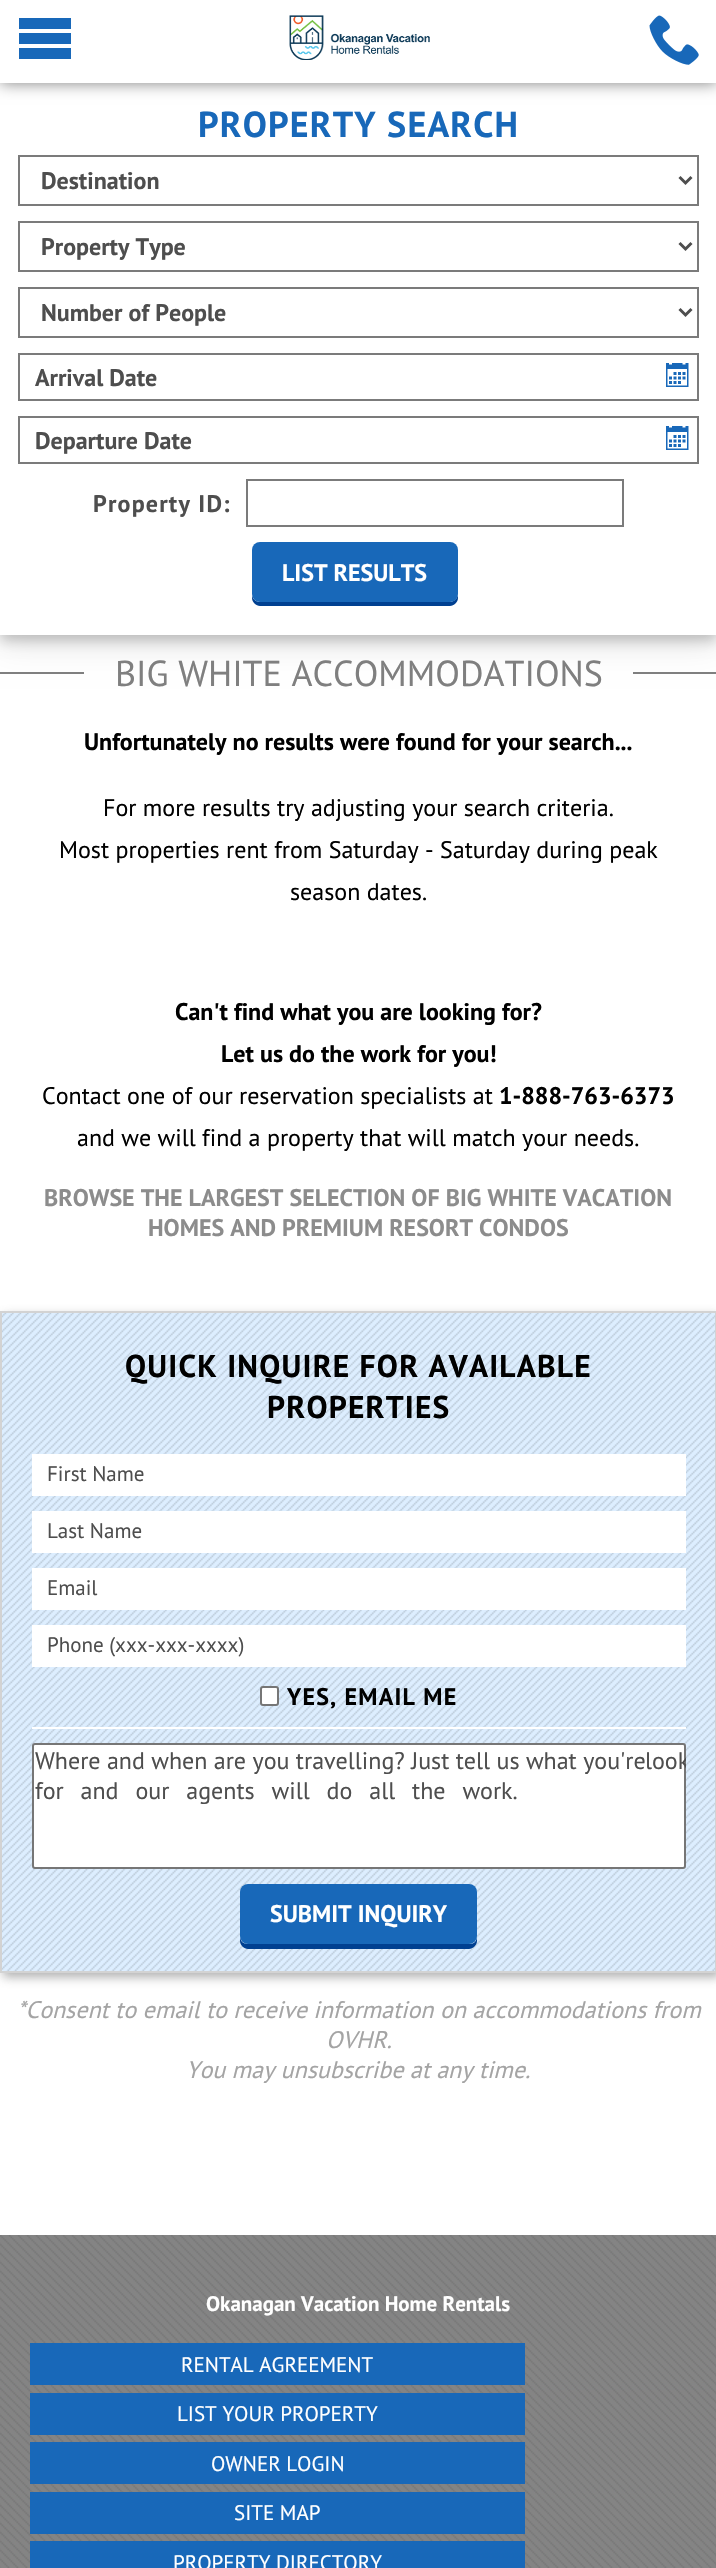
#include "include/core/SkBlurTypes.h"
#include "include/core/SkCanvas.h"
#include "include/core/SkData.h"
#include "include/core/SkFont.h"
#include "include/core/SkFontMgr.h"
#include "include/core/SkImage.h"
#include "include/core/SkMaskFilter.h"
#include "include/core/SkPaint.h"
#include "include/core/SkPathBuilder.h"
#include "include/core/SkTextBlob.h"
#include "include/effects/SkDashPathEffect.h"
#include "include/effects/SkGradientShader.h"
#include "include/utils/SkParsePath.h"

extern sk_sp<SkFontMgr> fontMgr;

static SkFont font(const char* family, int weight, float size, bool italic = false) {
    SkFontStyle style(weight, SkFontStyle::kNormal_Width,
        italic ? SkFontStyle::kItalic_Slant : SkFontStyle::kUpright_Slant);
    SkFont result(fontMgr->matchFamilyStyle(family, style), size);
    result.setSubpixel(true);
    return result;
}

static void drawLabel(SkCanvas* canvas, const char* s, float x, float y, const SkFont& font, SkColor color) {
    SkPaint ink(SkColor4f::FromColor(color));
    ink.setAntiAlias(true);
    canvas->drawString(s, x, y, font, ink);
}

static void drawTracked(SkCanvas* canvas, const char* s, float x, float y, const SkFont& font, const SkPaint& ink, float letter, float word) {
    std::vector<SkGlyphID> glyphs(font.countText(s, strlen(s), SkTextEncoding::kUTF8));
    std::vector<float> xs(glyphs.size());
    font.textToGlyphs(s, strlen(s), SkTextEncoding::kUTF8, glyphs);
    font.getXPos(glyphs, xs, x);
    float extra = 0;
    for (size_t i = 0; i < glyphs.size(); i++) {
        xs[i] += extra;
        extra += letter + word * (glyphs[i] == font.unicharToGlyph(' '));
    }
    canvas->drawTextBlob(SkTextBlob::MakeFromPosHGlyphs(glyphs, xs, y, font), 0, 0, ink);
}

static void fillRect(SkCanvas* canvas, float x, float y, float w, float h, SkColor color) {
    SkPaint ink(SkColor4f::FromColor(color));
    ink.setAntiAlias(true);
    canvas->drawRect(SkRect::MakeXYWH(x, y, w, h), ink);
}

static void fillRRect(SkCanvas* canvas, float x, float y, float w, float h, float radius, SkColor color) {
    SkPaint ink(SkColor4f::FromColor(color));
    ink.setAntiAlias(true);
    canvas->drawRoundRect(SkRect::MakeXYWH(x, y, w, h), radius, radius, ink);
}

static void drawPhoto(SkCanvas* canvas, const char* path, float x, float y, float w, float h) {
    auto image = SkImages::DeferredFromEncodedData(SkData::MakeFromFileName(path));
    canvas->drawImageRect(image, SkRect::MakeXYWH(x, y, w, h), SkSamplingOptions());
}

static SkPath parsePath(const char* data, bool evenOdd = false) {
    SkPath result = *SkParsePath::FromSVGString(data);
    if (evenOdd) result.setFillType(SkPathFillType::kEvenOdd);
    return result;
}

void draw(SkCanvas* canvas) {
    SkPaint paint;
    paint.setAntiAlias(true);
    canvas->clear(0xFFFFFFFF);
    fillRect(canvas, 0, 672, 716, 2, 0xFF7F7F7F);
    fillRect(canvas, 84, 672, 549, 2, 0xFFFFFFFF);
    paint.setColor(0x1A000000);
    paint.setMaskFilter(SkMaskFilter::MakeBlur(kNormal_SkBlurStyle, 15));
    canvas->drawRect(SkRect::MakeXYWH(0, 92, 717, 552), paint);
    paint.setMaskFilter(nullptr);
    paint.setColor(0x33000000);
    paint.setMaskFilter(SkMaskFilter::MakeBlur(kNormal_SkBlurStyle, 6));
    canvas->drawRect(SkRect::MakeXYWH(0, 89, 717, 552), paint);
    paint.setMaskFilter(nullptr);
    fillRect(canvas, 0, 83, 716, 552, 0xFFFFFFFF);
    paint.setColor(0x80000000);
    paint.setMaskFilter(SkMaskFilter::MakeBlur(kNormal_SkBlurStyle, 7.5f));
    canvas->drawRect(SkRect::MakeXYWH(0, 0, 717, 83), paint);
    paint.setMaskFilter(nullptr);
    fillRect(canvas, 0, 0, 716, 83, 0xFFFFFFFF);
    paint.setColor(0xFF1868B9);
    canvas->drawPath(parsePath("M19 18H71V29H19ZM19 33H71V44H19ZM19 48H71V59H19Z"), paint);
    drawPhoto(canvas, "assets/img1.png", 649, 15, 50, 50);
    drawPhoto(canvas, "assets/img2.png", 289, 15, 141, 45);
    SkFont font1 = font("PT Sans", 700, 36);
    drawTracked(canvas, "PROPERTY SEARCH", 198, 137, font1, paint, 1.2f, 0);
    paint.setStroke(true);
    paint.setStrokeWidth(2);
    paint.setColor(0xFF7B7B7B);
    canvas->drawRect(SkRect::MakeXYWH(19, 156, 679, 49), paint);
    paint.setStrokeWidth(3);
    paint.setColor(0xFF4E4E4E);
    canvas->drawPath(parsePath("M679.5 177L685.5 183L691.5 177"), paint);
    SkFont font2 = font("PT Sans", 700, 24);
    drawLabel(canvas, "Destination", 41, 189, font2, 0xFF4E4E4E);
    paint.setStrokeWidth(2);
    paint.setColor(0xFF7B7B7B);
    canvas->drawRect(SkRect::MakeXYWH(19, 222, 679, 49), paint);
    paint.setStrokeWidth(3);
    paint.setColor(0xFF4E4E4E);
    canvas->drawPath(parsePath("M679.5 243L685.5 249L691.5 243"), paint);
    drawLabel(canvas, "Property Type", 41, 255, font2, 0xFF4E4E4E);
    paint.setStrokeWidth(2);
    paint.setColor(0xFF7B7B7B);
    canvas->drawRect(SkRect::MakeXYWH(19, 288, 679, 49), paint);
    paint.setStrokeWidth(3);
    paint.setColor(0xFF4E4E4E);
    canvas->drawPath(parsePath("M679.5 309L685.5 315L691.5 309"), paint);
    drawLabel(canvas, "Number of People", 41, 321, font2, 0xFF4E4E4E);
    paint.setStrokeWidth(2);
    paint.setColor(0xFF7B7B7B);
    canvas->drawRect(SkRect::MakeXYWH(19, 354, 679, 46), paint);
    drawLabel(canvas, "Arrival Date", 35, 386, font2, 0xFF4E4E4E);
    drawPhoto(canvas, "assets/img3.png", 666, 363, 23, 24);
    canvas->drawRect(SkRect::MakeXYWH(19, 417, 679, 46), paint);
    drawLabel(canvas, "Departure Date", 35, 449, font2, 0xFF4E4E4E);
    drawPhoto(canvas, "assets/img3.png", 666, 426, 23, 24);
    paint.setStroke(false);
    paint.setColor(0xFF4E4E4E);
    drawTracked(canvas, "Property ID:", 93, 512, font2, paint, 1.2f, 0);
    paint.setStroke(true);
    paint.setColor(0xFF7B7B7B);
    canvas->drawRect(SkRect::MakeXYWH(247, 480, 376, 46), paint);
    paint.setStroke(false);
    paint.setColor(0xFF004091);
    canvas->drawPath(parsePath("M252 594V598C252 602 256 606 260 606H450C454 606 458 602 458 598V554V551V594C458 598 454 602 450 602H260C255 602 252 598 252 594Z"), paint);
    fillRRect(canvas, 252, 542, 206, 60, 8, 0xFF1868B9);
    drawLabel(canvas, "LIST RESULTS", 282, 581, font2, 0xFFFFFFFF);
    SkFont font3 = font("PT Sans", 400, 36);
    drawLabel(canvas, "BIG WHITE ACCOMMODATIONS", 115, 686, font3, 0xFF7F7F7F);
    drawLabel(canvas, "Unfortunately no results were found for your search...", 84, 750, font2, 0xFF000000);
    SkFont font4 = font("PT Sans", 400, 24);
    drawLabel(canvas, "For more results try adjusting your search criteria.", 103, 816, font4, 0xFF000000);
    drawLabel(canvas, "Most properties rent from Saturday - Saturday during peak", 59, 858, font4, 0xFF000000);
    drawLabel(canvas, "season dates.", 290, 900, font4, 0xFF000000);
    drawLabel(canvas, "Can't find what you are looking for?", 175, 1020, font2, 0xFF000000);
    drawLabel(canvas, "Let us do the work for you!", 221, 1062, font2, 0xFF000000);
    drawLabel(canvas, "Contact one of our reservation specialists at", 42, 1104, font4, 0xFF000000);
    drawLabel(canvas, "1-888-763-6373", 499, 1104, font2, 0xFF000000);
    drawLabel(canvas, "and we will find a property that will match your needs.", 77, 1146, font4, 0xFF000000);
    drawLabel(canvas, "BROWSE THE LARGEST SELECTION OF BIG WHITE VACATION", 44, 1206, font2, 0xFF8C8C8C);
    drawLabel(canvas, "HOMES AND PREMIUM RESORT CONDOS", 148, 1236, font2, 0xFF8C8C8C);
    paint.setColor(0xC9989898);
    paint.setMaskFilter(SkMaskFilter::MakeBlur(kNormal_SkBlurStyle, 5));
    canvas->drawRect(SkRect::MakeXYWH(3, 1316, 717, 661), paint);
    paint.setMaskFilter(nullptr);
    drawPhoto(canvas, "assets/img4.png", 2, 1313, 713, 658);
    paint.setStroke(true);
    paint.setColor(0xFFD3D3D3);
    canvas->drawRect(SkRect::MakeXYWH(1, 1312, 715, 660), paint);
    SkFont font5 = font("PT Sans", 700, 31.5f);
    paint.setStroke(false);
    paint.setColor(0xFF000000);
    drawTracked(canvas, "QUICK INQUIRE FOR AVAILABLE", 125, 1377, font5, paint, 1.2f, 0);
    drawTracked(canvas, "PROPERTIES", 267, 1418, font5, paint, 1.2f, 0);
    fillRect(canvas, 32, 1454, 654, 42, 0xFFFFFFFF);
    SkFont font6 = font("PT Sans", 400, 21);
    drawLabel(canvas, "First Name", 47, 1481, font6, 0xFF4E4E4E);
    fillRect(canvas, 32, 1511, 654, 42, 0xFFFFFFFF);
    drawLabel(canvas, "Last Name", 47, 1538, font6, 0xFF4E4E4E);
    fillRect(canvas, 32, 1568, 654, 42, 0xFFFFFFFF);
    drawLabel(canvas, "Email", 47, 1595, font6, 0xFF4E4E4E);
    fillRect(canvas, 32, 1625, 654, 42, 0xFFFFFFFF);
    drawLabel(canvas, "Phone (xxx-xxx-xxxx)", 47, 1652, font6, 0xFF4E4E4E);
    fillRect(canvas, 32, 1727, 654, 2, 0xFFFFFFFF);
    paint.setColor(0xFFFFFFFF);
    canvas->drawRoundRect(SkRect::MakeXYWH(261, 1687, 17, 18), 2, 2, paint);
    paint.setStroke(true);
    paint.setColor(0xFF767676);
    canvas->drawRoundRect(SkRect::MakeXYWH(261, 1687, 17, 18), 2, 2, paint);
    paint.setStroke(false);
    paint.setColor(0xFF000000);
    drawTracked(canvas, "YES, EMAIL ME", 287, 1705, font2, paint, 1.2f, 0);
    paint.setColor(0xFFFFFFFF);
    canvas->drawRoundRect(SkRect::MakeXYWH(33, 1744, 652, 124), 2, 2, paint);
    paint.setStroke(true);
    paint.setColor(0xFF767676);
    canvas->drawRoundRect(SkRect::MakeXYWH(33, 1744, 652, 124), 2, 2, paint);
    drawLabel(canvas, "Where and when are you travelling? Just tell us what you're", 35, 1769, font4, 0xFF4E4E4E);
    canvas->save();
    canvas->clipRect(SkRect::MakeXYWH(32, 1743, 654, 126));
    drawLabel(canvas, "look", 645, 1769, font4, 0xFF4E4E4E);
    canvas->restore();
    paint.setStroke(false);
    paint.setColor(0xFF4E4E4E);
    drawTracked(canvas, "for and our agents will do all the work.", 35, 1799, font4, paint, 0, 10.5f);
    paint.setColor(0xFF004091);
    canvas->drawPath(parsePath("M240 1936V1941C240 1945 244 1949 248 1949H469C473 1949 477 1945 477 1941V1936C477 1941 474 1944 470 1944H248C243 1944 240 1941 240 1936Z"), paint);
    fillRRect(canvas, 240, 1884, 237, 60, 8, 0xFF1868B9);
    drawLabel(canvas, "SUBMIT INQUIRY", 270, 1922, font2, 0xFFFFFFFF);
    SkFont font7 = font("PT Sans", 400, 24, true);
    drawLabel(canvas, "*Consent to email to receive information on accommodations from", 17, 2018, font7, 0xFFA4A4A4);
    drawLabel(canvas, "OVHR.", 326, 2048, font7, 0xFFA4A4A4);
    drawLabel(canvas, "You may unsubscribe at any time.", 186, 2078, font7, 0xFFA4A4A4);
    drawPhoto(canvas, "assets/img5.png", 0, 2235, 716, 333);
    SkFont font8 = font("PT Sans", 700, 21);
    drawLabel(canvas, "Okanagan Vacation Home Rentals", 206, 2311, font8, 0xFFFFFFFF);
    fillRect(canvas, 30, 2343, 495, 42, 0xFF1868B9);
    drawLabel(canvas, "RENTAL AGREEMENT", 181, 2372, font6, 0xFFFFFFFF);
    fillRect(canvas, 30, 2393, 495, 42, 0xFF1868B9);
    drawLabel(canvas, "LIST YOUR PROPERTY", 177, 2421, font6, 0xFFFFFFFF);
    fillRect(canvas, 30, 2442, 495, 42, 0xFF1868B9);
    drawLabel(canvas, "OWNER LOGIN", 211, 2471, font6, 0xFFFFFFFF);
    fillRect(canvas, 30, 2492, 495, 42, 0xFF1868B9);
    drawLabel(canvas, "SITE MAP", 234, 2520, font6, 0xFFFFFFFF);
    fillRect(canvas, 30, 2541, 495, 27, 0xFF1868B9);
    drawLabel(canvas, "PROPERTY DIRECTORY", 173, 2570, font6, 0xFFFFFFFF);
}
